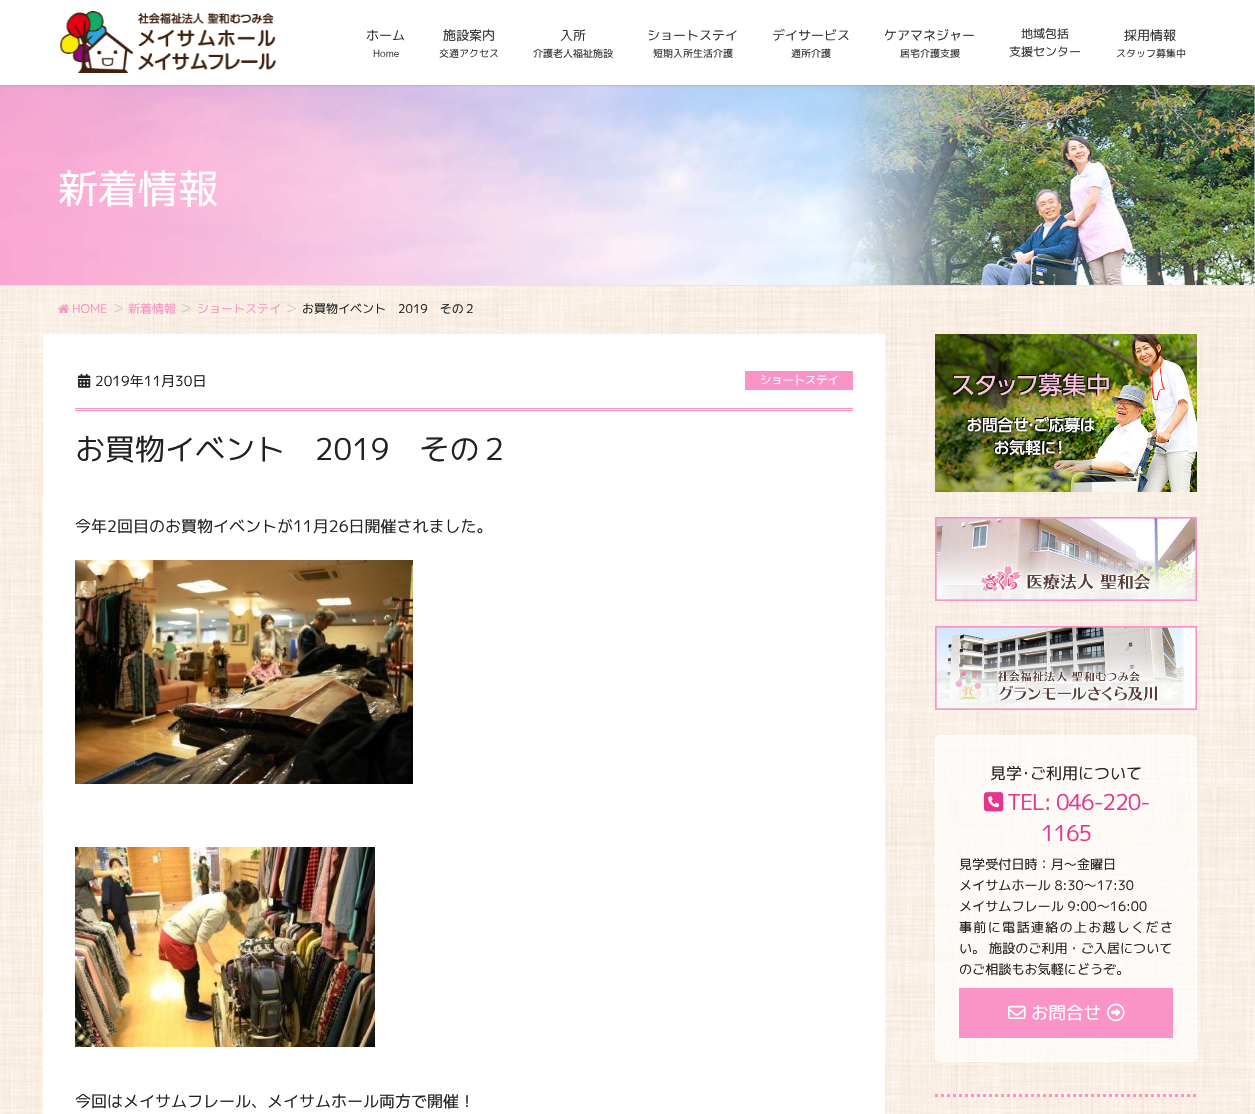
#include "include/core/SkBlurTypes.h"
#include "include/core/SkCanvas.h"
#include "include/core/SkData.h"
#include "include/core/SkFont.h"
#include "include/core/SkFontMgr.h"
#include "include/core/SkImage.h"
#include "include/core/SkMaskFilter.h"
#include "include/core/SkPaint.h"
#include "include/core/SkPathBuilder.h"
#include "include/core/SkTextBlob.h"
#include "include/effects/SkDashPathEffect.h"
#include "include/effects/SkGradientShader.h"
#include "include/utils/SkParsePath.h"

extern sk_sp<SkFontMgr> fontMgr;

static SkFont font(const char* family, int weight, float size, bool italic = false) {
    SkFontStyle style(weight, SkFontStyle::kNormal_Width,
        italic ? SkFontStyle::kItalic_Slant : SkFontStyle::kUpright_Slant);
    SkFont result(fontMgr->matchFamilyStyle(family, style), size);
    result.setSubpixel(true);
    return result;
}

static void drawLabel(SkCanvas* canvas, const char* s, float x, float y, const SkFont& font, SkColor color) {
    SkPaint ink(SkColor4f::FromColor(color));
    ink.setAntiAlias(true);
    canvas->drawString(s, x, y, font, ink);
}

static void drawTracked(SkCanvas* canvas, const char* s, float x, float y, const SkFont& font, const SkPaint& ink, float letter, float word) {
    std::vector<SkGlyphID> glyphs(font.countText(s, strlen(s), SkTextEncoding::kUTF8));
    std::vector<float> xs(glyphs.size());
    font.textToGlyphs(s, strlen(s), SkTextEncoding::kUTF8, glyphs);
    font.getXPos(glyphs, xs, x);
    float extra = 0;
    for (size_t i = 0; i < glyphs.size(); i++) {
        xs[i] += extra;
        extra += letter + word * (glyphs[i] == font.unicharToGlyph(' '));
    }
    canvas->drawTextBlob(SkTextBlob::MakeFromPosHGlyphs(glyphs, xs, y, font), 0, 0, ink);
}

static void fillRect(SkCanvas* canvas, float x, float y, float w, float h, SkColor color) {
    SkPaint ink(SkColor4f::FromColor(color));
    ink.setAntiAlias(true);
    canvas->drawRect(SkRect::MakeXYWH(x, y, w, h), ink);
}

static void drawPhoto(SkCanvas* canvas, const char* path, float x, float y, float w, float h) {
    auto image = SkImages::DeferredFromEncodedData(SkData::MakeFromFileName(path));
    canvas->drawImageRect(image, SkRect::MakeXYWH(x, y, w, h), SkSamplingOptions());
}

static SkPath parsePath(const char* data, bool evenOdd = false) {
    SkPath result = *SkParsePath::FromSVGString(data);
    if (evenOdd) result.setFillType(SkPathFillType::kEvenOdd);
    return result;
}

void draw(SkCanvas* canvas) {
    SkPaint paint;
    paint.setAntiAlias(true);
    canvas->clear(0xFFFFFFFF);
    drawPhoto(canvas, "assets/img2.png", 0, 85, 1255, 200);
    canvas->save();
    canvas->clipRect(SkRect::MakeXYWH(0, 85, 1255, 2));
    paint.setColor(0x1A000000);
    paint.setMaskFilter(SkMaskFilter::MakeBlur(kNormal_SkBlurStyle, 1.5f));
    canvas->drawRect(SkRect::MakeXYWH(0, 1, 1255, 85), paint);
    paint.setMaskFilter(nullptr);
    canvas->restore();
    drawPhoto(canvas, "assets/img1.png", 60, 11, 216, 62);
    SkFont font1 = font("M PLUS 1p", 400, 13);
    drawLabel(canvas, "ホーム", 366, 40, font1, 0xFF333333);
    SkFont font2 = font("M PLUS 1p", 400, 10);
    drawLabel(canvas, "Home", 373, 57, font2, 0xFF333333);
    drawLabel(canvas, "施設案内", 443, 40, font1, 0xFF333333);
    drawLabel(canvas, "交通アクセス", 439, 57, font2, 0xFF333333);
    drawLabel(canvas, "入所", 560, 40, font1, 0xFF333333);
    drawLabel(canvas, "介護老人福祉施設", 533, 57, font2, 0xFF333333);
    drawLabel(canvas, "ショートステイ", 647, 40, font1, 0xFF333333);
    drawLabel(canvas, "短期入所生活介護", 653, 57, font2, 0xFF333333);
    drawLabel(canvas, "デイサービス", 772, 40, font1, 0xFF333333);
    drawLabel(canvas, "通所介護", 791, 57, font2, 0xFF333333);
    drawLabel(canvas, "ケアマネジャー", 884, 40, font1, 0xFF333333);
    drawLabel(canvas, "居宅介護支援", 900, 57, font2, 0xFF333333);
    SkFont font3 = font("M PLUS 1p", 400, 12);
    drawLabel(canvas, "地域包括", 1021, 38, font3, 0xFF333333);
    drawLabel(canvas, "支援センター", 1009, 56, font3, 0xFF333333);
    drawLabel(canvas, "採用情報", 1124, 40, font1, 0xFF333333);
    drawLabel(canvas, "スタッフ募集中", 1116, 57, font2, 0xFF333333);
    SkFont font4 = font("M PLUS 1p", 400, 40);
    drawLabel(canvas, "新着情報", 58, 203, font4, 0xFFFFFFFF);
    fillRect(canvas, 0, 285, 1255, 1, 0xFFE5E5E5);
    drawPhoto(canvas, "assets/img4.png", 0, 286, 1255, 828);
    drawPhoto(canvas, "assets/img3.png", 58, 304, 11, 9);
    drawLabel(canvas, "HOME", 72, 313, font3, 0xFFFA93C6);
    SkFont font5 = font("M PLUS 1p", 400, 16);
    drawLabel(canvas, ">", 113, 313, font5, 0xFFCCCCCC);
    drawLabel(canvas, "新着情報", 128, 313, font3, 0xFFFA93C6);
    drawLabel(canvas, ">", 181, 313, font5, 0xFFCCCCCC);
    drawLabel(canvas, "ショートステイ", 197, 313, font3, 0xFFFA93C6);
    drawLabel(canvas, ">", 286, 313, font5, 0xFFCCCCCC);
    drawLabel(canvas, "お買物イベント　2019　その２", 302, 313, font3, 0xFF222222);
    fillRect(canvas, 43, 334, 842, 780, 0xFFFFFFFF);
    drawPhoto(canvas, "assets/img5.png", 78, 373, 13, 15);
    SkFont font6 = font("M PLUS 1p", 400, 14);
    drawLabel(canvas, "2019年11月30日", 95, 386, font6, 0xFF222222);
    fillRect(canvas, 745, 371, 108, 19, 0xFFFA93C6);
    SkFont font7 = font("M PLUS 1p", 400, 11.25f);
    drawLabel(canvas, "ショートステイ", 760, 384, font7, 0xFFFFFFFF);
    fillRect(canvas, 75, 408, 778, 1, 0xFFFA93C6);
    fillRect(canvas, 75, 410, 778, 1, 0xFFFA93C6);
    SkFont font8 = font("M PLUS 1p", 400, 30);
    drawLabel(canvas, "お買物イベント　2019　その２", 75, 460, font8, 0xFF222222);
    drawLabel(canvas, "今年2回目のお買物イベントが11月26日開催されました。", 75, 532, font5, 0xFF222222);
    drawPhoto(canvas, "assets/img6.png", 75, 560, 338, 224);
    drawPhoto(canvas, "assets/img7.png", 75, 847, 300, 200);
    drawLabel(canvas, "今回はメイサムフレール、メイサムホール両方で開催！", 75, 1107, font5, 0xFF222222);
    drawPhoto(canvas, "assets/img8.png", 935, 334, 262, 158);
    drawPhoto(canvas, "assets/img9.png", 935, 517, 262, 84);
    drawPhoto(canvas, "assets/img10.png", 935, 626, 262, 84);
    paint.setColor(0xA6FFFFFF);
    canvas->drawRoundRect(SkRect::MakeXYWH(935.5f, 735.5f, 261, 326), 4.5f, 4.5f, paint);
    paint.setStroke(true);
    paint.setStrokeWidth(1);
    paint.setColor(0xFFFFFFFF);
    canvas->drawRoundRect(SkRect::MakeXYWH(935.5f, 735.5f, 261, 326), 4.5f, 4.5f, paint);
    drawLabel(canvas, "見学･ご利用について", 990, 779, font5, 0xFF222222);
    drawPhoto(canvas, "assets/img11.png", 984, 792, 20, 20);
    SkFont font9 = font("M PLUS 1p", 400, 22);
    paint.setStroke(false);
    paint.setColor(0xFFE3368C);
    drawTracked(canvas, "TEL: 046-220-", 1007, 810, font9, paint, -1.1f, 0);
    drawTracked(canvas, "1165", 1041, 841, font9, paint, -1.1f, 0);
    SkFont font10 = font("M PLUS 1p", 400, 13.1f);
    drawLabel(canvas, "見学受付日時：月～金曜日", 959, 869, font10, 0xFF222222);
    drawLabel(canvas, "メイサムホール 8:30～17:30", 959, 890, font10, 0xFF222222);
    drawLabel(canvas, "メイサムフレール 9:00～16:00", 959, 911, font10, 0xFF222222);
    paint.setColor(0xFF222222);
    drawTracked(canvas, "事前に電話連絡の上お越しくださ", 959, 932, font10, paint, 1.25f, 0);
    drawLabel(canvas, "い。 施設のご利用・ご入居について", 959, 953, font10, 0xFF222222);
    drawLabel(canvas, "のご相談もお気軽にどうぞ。", 959, 974, font10, 0xFF222222);
    fillRect(canvas, 959, 988, 214, 50, 0xFFFA93C6);
    drawPhoto(canvas, "assets/img12.png", 1008, 1005, 18, 14);
    SkFont font11 = font("M PLUS 1p", 400, 17.5f);
    drawLabel(canvas, "お問合せ", 1031, 1019, font11, 0xFFFFFFFF);
    drawPhoto(canvas, "assets/img13.png", 1107, 1003, 18, 19);
    paint.setStroke(true);
    paint.setStrokeWidth(3);
    paint.setColor(0xFFFA93C6);
    paint.setPathEffect(SkDashPathEffect::Make({{3, 3}}, 0));
    canvas->drawPath(parsePath("M935 1095.5H1197"), paint);
    paint.setPathEffect(nullptr);
}
